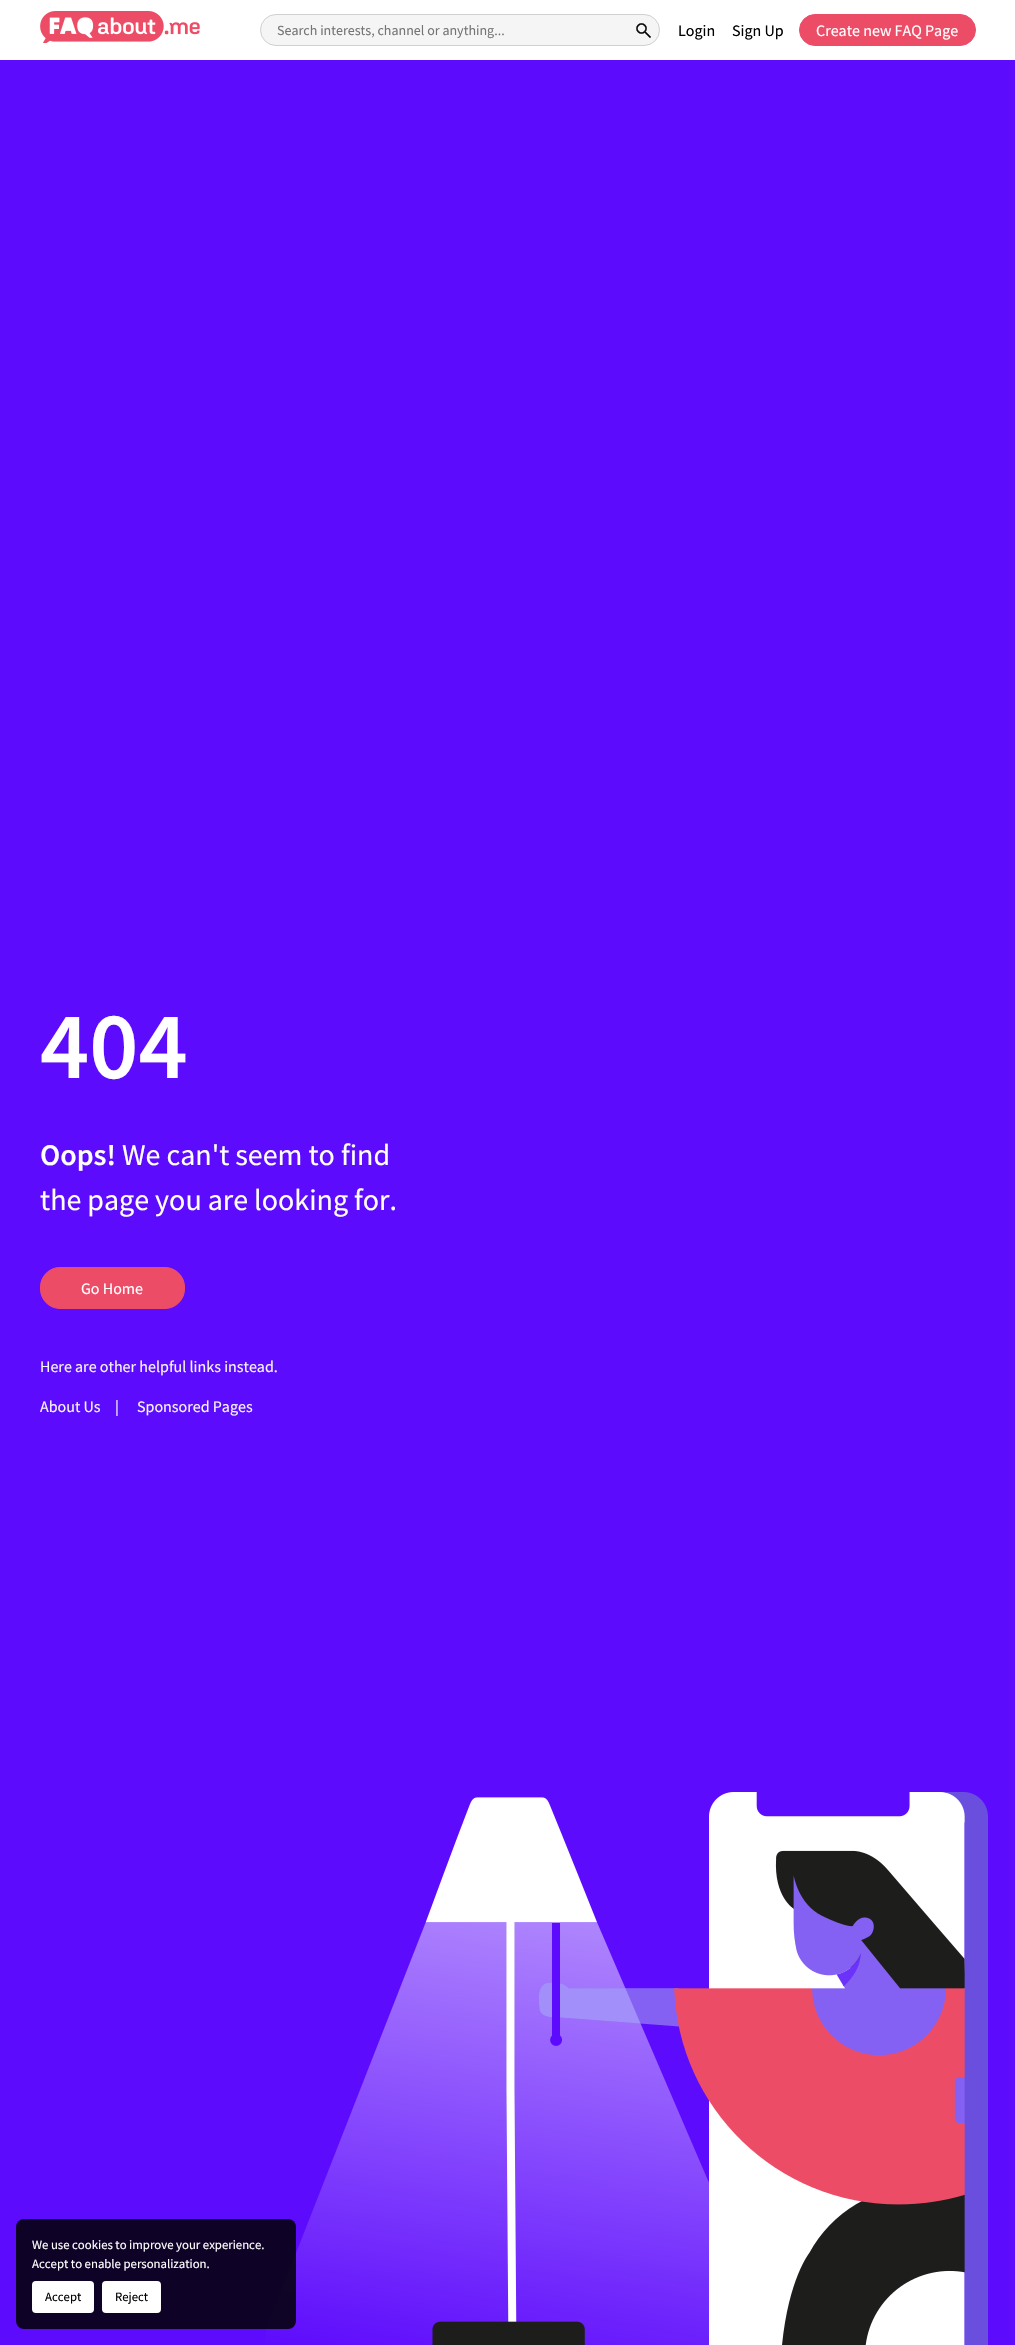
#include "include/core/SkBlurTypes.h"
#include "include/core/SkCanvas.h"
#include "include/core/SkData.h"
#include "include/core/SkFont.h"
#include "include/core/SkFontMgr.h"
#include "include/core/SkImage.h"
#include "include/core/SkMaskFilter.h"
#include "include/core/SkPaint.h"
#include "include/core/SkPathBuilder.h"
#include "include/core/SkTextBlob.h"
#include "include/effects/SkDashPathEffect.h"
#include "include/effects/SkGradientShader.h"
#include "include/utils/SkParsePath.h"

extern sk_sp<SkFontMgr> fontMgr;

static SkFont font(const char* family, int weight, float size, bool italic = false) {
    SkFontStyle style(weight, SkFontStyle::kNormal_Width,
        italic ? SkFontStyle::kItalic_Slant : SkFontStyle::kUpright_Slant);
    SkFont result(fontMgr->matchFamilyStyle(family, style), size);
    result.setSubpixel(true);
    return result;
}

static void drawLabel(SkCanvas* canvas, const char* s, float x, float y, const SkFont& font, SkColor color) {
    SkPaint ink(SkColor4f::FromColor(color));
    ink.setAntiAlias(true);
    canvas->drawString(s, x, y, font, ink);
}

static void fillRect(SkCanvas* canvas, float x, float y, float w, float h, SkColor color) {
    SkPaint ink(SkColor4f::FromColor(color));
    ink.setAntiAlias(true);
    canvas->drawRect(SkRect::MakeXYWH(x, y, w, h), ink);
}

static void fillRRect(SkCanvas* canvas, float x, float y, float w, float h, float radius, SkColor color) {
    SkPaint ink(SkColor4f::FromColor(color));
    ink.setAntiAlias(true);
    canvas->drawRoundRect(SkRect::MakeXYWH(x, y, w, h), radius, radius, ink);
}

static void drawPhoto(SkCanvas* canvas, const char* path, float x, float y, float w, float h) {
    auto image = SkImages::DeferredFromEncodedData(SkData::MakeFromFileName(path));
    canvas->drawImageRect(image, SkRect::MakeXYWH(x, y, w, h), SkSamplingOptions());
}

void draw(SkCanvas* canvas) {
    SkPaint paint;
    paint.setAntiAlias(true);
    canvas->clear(0xFF5D0BFC);
    fillRect(canvas, 0, 0, 1015, 60, 0xFFFFFFFF);
    drawPhoto(canvas, "assets/img1.png", 40, 11, 160, 32);
    paint.setColor(0xFFF5F5F5);
    canvas->drawRoundRect(SkRect::MakeXYWH(260.5f, 14.5f, 399, 31), 15.5f, 15.5f, paint);
    paint.setStroke(true);
    paint.setStrokeWidth(1);
    paint.setColor(0xFFD0D0D0);
    canvas->drawRoundRect(SkRect::MakeXYWH(260.5f, 14.5f, 399, 31), 15.5f, 15.5f, paint);
    SkFont font1 = font("Source Sans Pro", 400, 14);
    drawLabel(canvas, "Search interests, channel or anything...", 277, 35, font1, 0xFF757575);
    drawPhoto(canvas, "assets/img2.png", 636, 23, 15, 15);
    SkFont font2 = font("Source Sans Pro", 400, 16);
    drawLabel(canvas, "Login", 678, 36, font2, 0xFF000000);
    drawLabel(canvas, "Sign Up", 732, 36, font2, 0xFF000000);
    paint.setStroke(false);
    paint.setColor(0xFFED4C67);
    canvas->drawRoundRect(SkRect::MakeXYWH(799.5f, 14.5f, 176, 31), 15.5f, 15.5f, paint);
    paint.setStroke(true);
    canvas->drawRoundRect(SkRect::MakeXYWH(799.5f, 14.5f, 176, 31), 15.5f, 15.5f, paint);
    drawLabel(canvas, "Create new FAQ Page", 816, 36, font2, 0xFFFFFFFF);
    SkFont font3 = font("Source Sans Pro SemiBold", 600, 96);
    drawLabel(canvas, "404", 40, 1078, font3, 0xFFFFFFFF);
    SkFont font4 = font("Source Sans Pro SemiBold", 600, 30);
    drawLabel(canvas, "Oops!", 40, 1165, font4, 0xFFFFFFFF);
    SkFont font5 = font("Source Sans Pro", 400, 30);
    drawLabel(canvas, "We can't seem to find", 122, 1165, font5, 0xFFFFFFFF);
    drawLabel(canvas, "the page you are looking for.", 40, 1210, font5, 0xFFFFFFFF);
    paint.setStroke(false);
    canvas->drawRoundRect(SkRect::MakeXYWH(40.5f, 1267.5f, 144, 41), 19.5f, 19.5f, paint);
    paint.setStroke(true);
    canvas->drawRoundRect(SkRect::MakeXYWH(40.5f, 1267.5f, 144, 41), 19.5f, 19.5f, paint);
    drawLabel(canvas, "Go Home", 81, 1294, font2, 0xFFFFFFFF);
    drawLabel(canvas, "Here are other helpful links instead.", 40, 1372, font2, 0xFFF5F5F5);
    drawLabel(canvas, "About Us", 40, 1412, font2, 0xFFF5F5F5);
    drawLabel(canvas, "|", 115, 1412, font2, 0xFFF5F5F5);
    drawLabel(canvas, "Sponsored Pages", 137, 1412, font2, 0xFFF5F5F5);
    drawPhoto(canvas, "assets/img3.png", 266, 1792, 722, 553);
    fillRRect(canvas, 16, 2219, 280, 110, 8, 0xD9000000);
    SkFont font6 = font("Source Sans Pro", 400, 12.75f);
    drawLabel(canvas, "We use cookies to improve your experience.", 32, 2249, font6, 0xFFFFFFFF);
    drawLabel(canvas, "Accept to enable personalization.", 32, 2268, font6, 0xFFFFFFFF);
    fillRRect(canvas, 32, 2281, 62, 32, 4, 0xFFFFFFFF);
    drawLabel(canvas, "Accept", 45, 2301, font6, 0xFF000000);
    fillRRect(canvas, 102, 2281, 59, 32, 4, 0xFFFFFFFF);
    drawLabel(canvas, "Reject", 115, 2301, font6, 0xFF000000);
}
